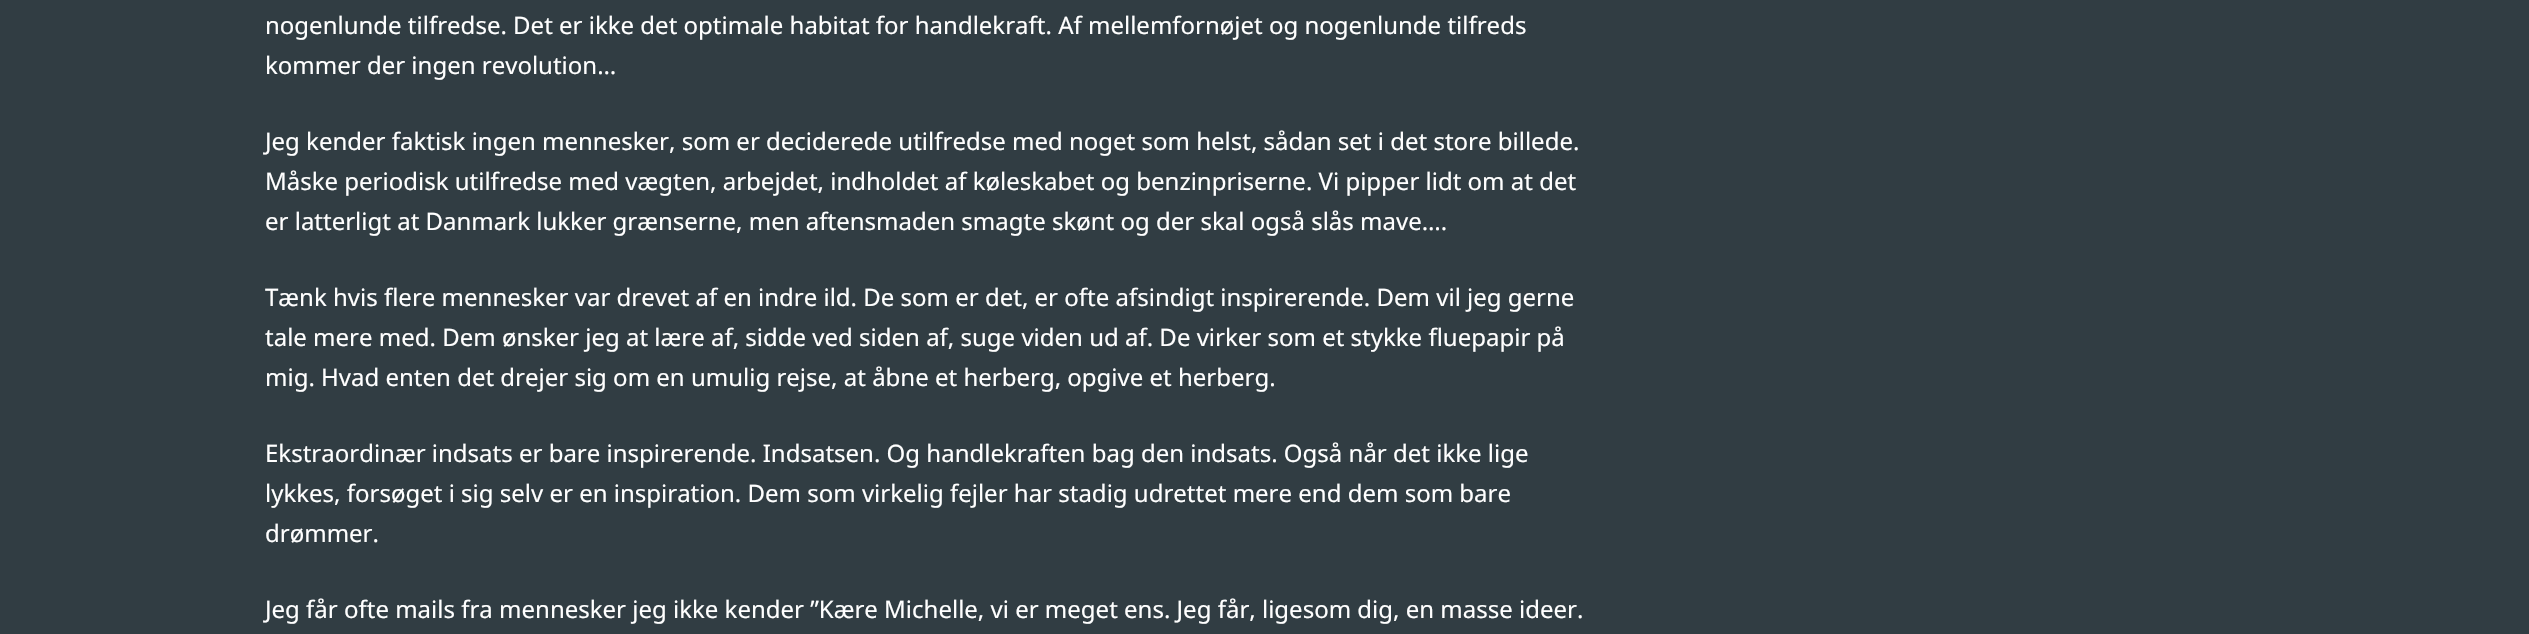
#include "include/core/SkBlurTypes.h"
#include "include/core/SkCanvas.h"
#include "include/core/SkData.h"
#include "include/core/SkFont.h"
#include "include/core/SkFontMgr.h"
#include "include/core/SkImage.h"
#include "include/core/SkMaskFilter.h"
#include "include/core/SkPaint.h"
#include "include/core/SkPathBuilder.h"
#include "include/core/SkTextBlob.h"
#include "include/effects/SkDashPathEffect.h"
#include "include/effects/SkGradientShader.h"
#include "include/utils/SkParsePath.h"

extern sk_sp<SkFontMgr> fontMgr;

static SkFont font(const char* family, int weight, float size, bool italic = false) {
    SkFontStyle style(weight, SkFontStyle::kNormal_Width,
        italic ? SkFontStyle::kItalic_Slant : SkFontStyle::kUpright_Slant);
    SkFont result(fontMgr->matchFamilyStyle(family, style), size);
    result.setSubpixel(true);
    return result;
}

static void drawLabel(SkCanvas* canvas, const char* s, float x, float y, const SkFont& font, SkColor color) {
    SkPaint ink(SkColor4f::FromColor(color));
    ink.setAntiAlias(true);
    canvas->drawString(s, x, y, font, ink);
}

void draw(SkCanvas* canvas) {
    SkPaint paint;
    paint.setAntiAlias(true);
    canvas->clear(0xFF313D43);
    SkFont font1 = font("Noto Sans", 400, 24);
    drawLabel(canvas, "nogenlunde tilfredse. Det er ikke det optimale habitat for handlekraft. Af mellemfornøjet og nogenlunde tilfreds", 265, 34, font1, 0xFFFFFFFF);
    drawLabel(canvas, "kommer der ingen revolution…", 265, 74, font1, 0xFFFFFFFF);
    drawLabel(canvas, "Jeg kender faktisk ingen mennesker, som er deciderede utilfredse med noget som helst, sådan set i det store billede.", 265, 150, font1, 0xFFFFFFFF);
    drawLabel(canvas, "Måske periodisk utilfredse med vægten, arbejdet, indholdet af køleskabet og benzinpriserne. Vi pipper lidt om at det", 265, 190, font1, 0xFFFFFFFF);
    drawLabel(canvas, "er latterligt at Danmark lukker grænserne, men aftensmaden smagte skønt og der skal også slås mave….", 265, 230, font1, 0xFFFFFFFF);
    drawLabel(canvas, "Tænk hvis flere mennesker var drevet af en indre ild. De som er det, er ofte afsindigt inspirerende. Dem vil jeg gerne", 265, 306, font1, 0xFFFFFFFF);
    drawLabel(canvas, "tale mere med. Dem ønsker jeg at lære af, sidde ved siden af, suge viden ud af. De virker som et stykke fluepapir på", 265, 346, font1, 0xFFFFFFFF);
    drawLabel(canvas, "mig. Hvad enten det drejer sig om en umulig rejse, at åbne et herberg, opgive et herberg.", 265, 386, font1, 0xFFFFFFFF);
    drawLabel(canvas, "Ekstraordinær indsats er bare inspirerende. Indsatsen. Og handlekraften bag den indsats. Også når det ikke lige", 265, 462, font1, 0xFFFFFFFF);
    drawLabel(canvas, "lykkes, forsøget i sig selv er en inspiration. Dem som virkelig fejler har stadig udrettet mere end dem som bare", 265, 502, font1, 0xFFFFFFFF);
    drawLabel(canvas, "drømmer.", 265, 542, font1, 0xFFFFFFFF);
    drawLabel(canvas, "Jeg får ofte mails fra mennesker jeg ikke kender ”Kære Michelle, vi er meget ens. Jeg får, ligesom dig, en masse ideer.", 265, 618, font1, 0xFFFFFFFF);
}
